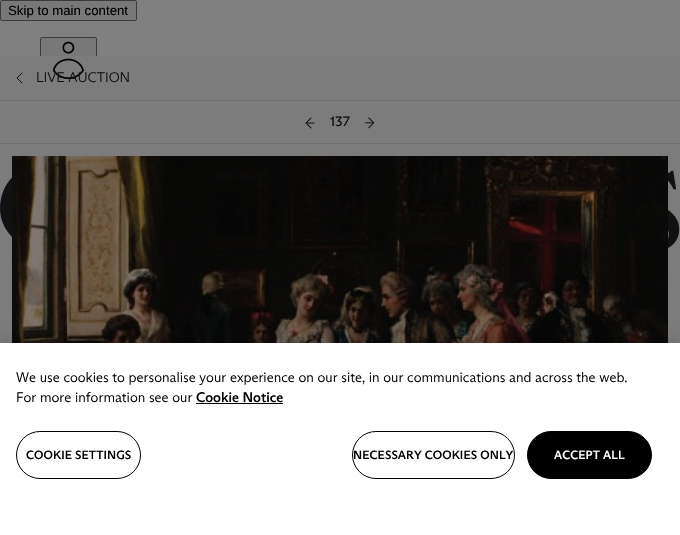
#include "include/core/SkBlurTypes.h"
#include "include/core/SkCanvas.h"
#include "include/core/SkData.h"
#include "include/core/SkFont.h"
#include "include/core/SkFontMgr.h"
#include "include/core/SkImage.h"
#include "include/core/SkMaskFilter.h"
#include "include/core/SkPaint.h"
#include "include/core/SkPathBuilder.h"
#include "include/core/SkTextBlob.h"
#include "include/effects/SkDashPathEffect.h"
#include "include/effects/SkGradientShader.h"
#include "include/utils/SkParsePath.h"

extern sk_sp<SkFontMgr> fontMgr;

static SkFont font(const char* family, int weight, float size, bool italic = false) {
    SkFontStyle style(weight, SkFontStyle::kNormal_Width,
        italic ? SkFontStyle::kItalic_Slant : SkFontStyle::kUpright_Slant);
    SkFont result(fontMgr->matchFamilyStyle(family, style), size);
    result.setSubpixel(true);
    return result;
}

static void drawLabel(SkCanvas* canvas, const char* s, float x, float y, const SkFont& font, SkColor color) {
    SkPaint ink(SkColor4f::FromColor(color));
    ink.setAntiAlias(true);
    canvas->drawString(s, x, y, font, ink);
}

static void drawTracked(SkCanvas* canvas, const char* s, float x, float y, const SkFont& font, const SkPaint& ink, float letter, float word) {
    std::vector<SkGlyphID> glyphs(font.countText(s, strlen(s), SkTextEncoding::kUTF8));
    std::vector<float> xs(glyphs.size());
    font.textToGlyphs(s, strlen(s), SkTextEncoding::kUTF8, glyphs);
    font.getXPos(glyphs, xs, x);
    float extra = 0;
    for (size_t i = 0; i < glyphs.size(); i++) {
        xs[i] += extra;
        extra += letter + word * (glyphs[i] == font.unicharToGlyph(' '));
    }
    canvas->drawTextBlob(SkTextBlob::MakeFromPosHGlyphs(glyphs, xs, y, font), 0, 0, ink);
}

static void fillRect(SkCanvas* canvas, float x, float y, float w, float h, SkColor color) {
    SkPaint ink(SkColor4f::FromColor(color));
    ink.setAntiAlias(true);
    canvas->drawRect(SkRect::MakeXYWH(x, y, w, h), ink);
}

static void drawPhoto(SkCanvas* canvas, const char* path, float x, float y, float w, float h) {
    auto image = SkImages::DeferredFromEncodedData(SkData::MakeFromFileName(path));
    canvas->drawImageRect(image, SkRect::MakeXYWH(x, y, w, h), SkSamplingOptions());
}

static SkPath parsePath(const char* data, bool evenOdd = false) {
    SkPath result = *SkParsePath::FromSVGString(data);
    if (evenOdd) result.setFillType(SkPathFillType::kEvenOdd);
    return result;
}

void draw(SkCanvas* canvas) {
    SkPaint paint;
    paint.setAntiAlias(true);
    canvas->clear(0xFF808080);
    paint.setColor(0xFF787878);
    canvas->drawRoundRect(SkRect::MakeXYWH(0.5f, 0.5f, 136, 20), 1.5f, 1.5f, paint);
    paint.setStroke(true);
    paint.setStrokeWidth(1);
    paint.setColor(0xFF3B3B3B);
    canvas->drawRoundRect(SkRect::MakeXYWH(0.5f, 0.5f, 136, 20), 1.5f, 1.5f, paint);
    SkFont font1 = font("Liberation Sans", 400, 13.25f);
    drawLabel(canvas, "Skip to main content", 8, 15, font1, 0xFF000000);
    paint.setStroke(false);
    paint.setColor(0xFF787878);
    canvas->drawRoundRect(SkRect::MakeXYWH(40.5f, 37.5f, 56, 64), 1.5f, 1.5f, paint);
    paint.setStroke(true);
    paint.setColor(0xFF3B3B3B);
    canvas->drawRoundRect(SkRect::MakeXYWH(40.5f, 37.5f, 56, 64), 1.5f, 1.5f, paint);
    fillRect(canvas, 0, 56, 680, 287, 0xFF7C7C7C);
    drawPhoto(canvas, "assets/img1.png", 52, 41, 32, 39);
    drawPhoto(canvas, "assets/img2.png", 0, 170, 680, 78);
    paint.setStrokeCap(SkPaint::kRound_Cap);
    paint.setStrokeJoin(SkPaint::kRound_Join);
    paint.setColor(0xFF111111);
    canvas->drawPath(parsePath("M22 73L17 78L22 83"), paint);
    SkFont font2 = font("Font", 300, 14);
    drawLabel(canvas, "LIVE AUCTION", 36, 82, font2, 0xFF111111);
    fillRect(canvas, 0, 100, 680, 1, 0xFF6F6F6F);
    fillRect(canvas, 0, 143, 680, 1, 0xFF6F6F6F);
    drawPhoto(canvas, "assets/img3.png", 305, 117, 10, 12);
    SkFont font3 = font("Font", 400, 14);
    drawLabel(canvas, "137", 330, 126, font3, 0xFF111111);
    drawPhoto(canvas, "assets/img4.png", 365, 117, 10, 12);
    drawPhoto(canvas, "assets/img5.png", 12, 156, 656, 187);
    paint.setStroke(false);
    paint.setColor(0x33000000);
    paint.setMaskFilter(SkMaskFilter::MakeBlur(kNormal_SkBlurStyle, 9));
    canvas->drawRect(SkRect::MakeXYWH(0, 343, 680, 192), paint);
    paint.setMaskFilter(nullptr);
    fillRect(canvas, 0, 343, 680, 192, 0xFFFFFFFF);
    drawLabel(canvas, "We use cookies to personalise your experience on our site, in our communications and across the web.", 16, 382, font2, 0xFF000000);
    drawLabel(canvas, "For more information see our", 16, 402, font2, 0xFF000000);
    SkFont font4 = font("Font", 500, 14);
    drawLabel(canvas, "Cookie Notice", 196, 402, font4, 0xFF000000);
    fillRect(canvas, 196, 403, 87, 1, 0xFF000000);
    paint.setStroke(true);
    paint.setStrokeCap(SkPaint::kButt_Cap);
    paint.setStrokeJoin(SkPaint::kMiter_Join);
    paint.setColor(0xFF000000);
    canvas->drawRoundRect(SkRect::MakeXYWH(16.5f, 431.5f, 124, 47), 23.5f, 23.5f, paint);
    SkFont font5 = font("Font", 500, 12);
    paint.setStroke(false);
    drawTracked(canvas, "COOKIE SETTINGS", 26, 459, font5, paint, 0.1f, 0);
    paint.setStroke(true);
    canvas->drawRoundRect(SkRect::MakeXYWH(352.5f, 431.5f, 162, 47), 23.5f, 23.5f, paint);
    paint.setStroke(false);
    drawTracked(canvas, "NECESSARY COOKIES ONLY", 353, 459, font5, paint, 0.1f, 0);
    canvas->drawRoundRect(SkRect::MakeXYWH(527.5f, 431.5f, 124, 47), 23.5f, 23.5f, paint);
    paint.setStroke(true);
    canvas->drawRoundRect(SkRect::MakeXYWH(527.5f, 431.5f, 124, 47), 23.5f, 23.5f, paint);
    paint.setStroke(false);
    paint.setColor(0xFFFFFFFF);
    drawTracked(canvas, "ACCEPT ALL", 554, 459, font5, paint, 0.1f, 0);
}
